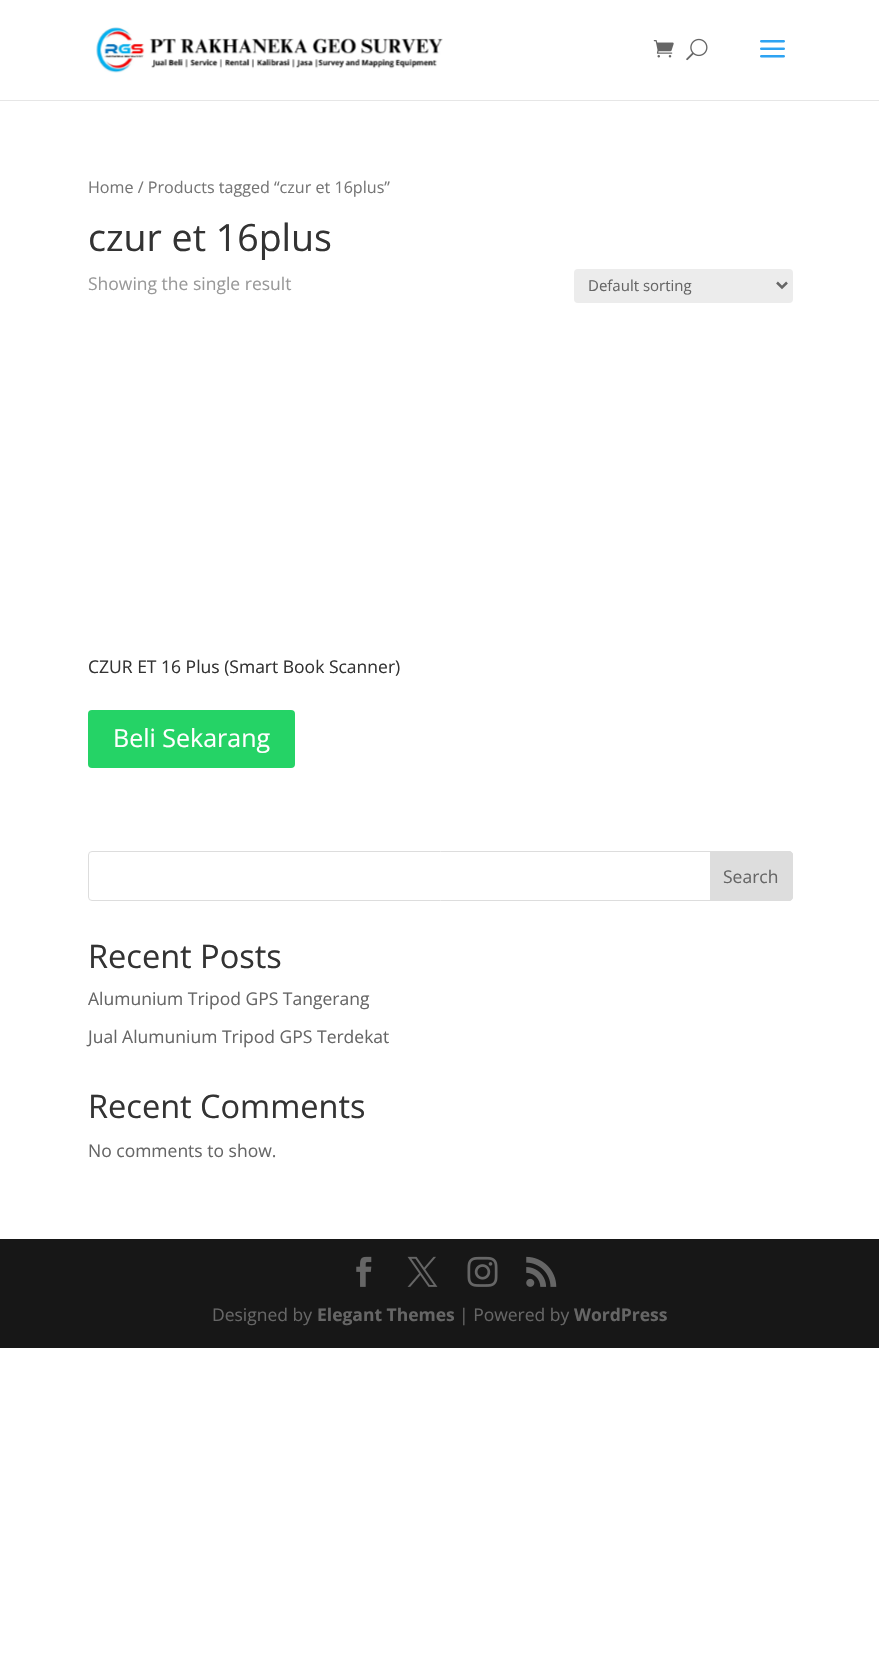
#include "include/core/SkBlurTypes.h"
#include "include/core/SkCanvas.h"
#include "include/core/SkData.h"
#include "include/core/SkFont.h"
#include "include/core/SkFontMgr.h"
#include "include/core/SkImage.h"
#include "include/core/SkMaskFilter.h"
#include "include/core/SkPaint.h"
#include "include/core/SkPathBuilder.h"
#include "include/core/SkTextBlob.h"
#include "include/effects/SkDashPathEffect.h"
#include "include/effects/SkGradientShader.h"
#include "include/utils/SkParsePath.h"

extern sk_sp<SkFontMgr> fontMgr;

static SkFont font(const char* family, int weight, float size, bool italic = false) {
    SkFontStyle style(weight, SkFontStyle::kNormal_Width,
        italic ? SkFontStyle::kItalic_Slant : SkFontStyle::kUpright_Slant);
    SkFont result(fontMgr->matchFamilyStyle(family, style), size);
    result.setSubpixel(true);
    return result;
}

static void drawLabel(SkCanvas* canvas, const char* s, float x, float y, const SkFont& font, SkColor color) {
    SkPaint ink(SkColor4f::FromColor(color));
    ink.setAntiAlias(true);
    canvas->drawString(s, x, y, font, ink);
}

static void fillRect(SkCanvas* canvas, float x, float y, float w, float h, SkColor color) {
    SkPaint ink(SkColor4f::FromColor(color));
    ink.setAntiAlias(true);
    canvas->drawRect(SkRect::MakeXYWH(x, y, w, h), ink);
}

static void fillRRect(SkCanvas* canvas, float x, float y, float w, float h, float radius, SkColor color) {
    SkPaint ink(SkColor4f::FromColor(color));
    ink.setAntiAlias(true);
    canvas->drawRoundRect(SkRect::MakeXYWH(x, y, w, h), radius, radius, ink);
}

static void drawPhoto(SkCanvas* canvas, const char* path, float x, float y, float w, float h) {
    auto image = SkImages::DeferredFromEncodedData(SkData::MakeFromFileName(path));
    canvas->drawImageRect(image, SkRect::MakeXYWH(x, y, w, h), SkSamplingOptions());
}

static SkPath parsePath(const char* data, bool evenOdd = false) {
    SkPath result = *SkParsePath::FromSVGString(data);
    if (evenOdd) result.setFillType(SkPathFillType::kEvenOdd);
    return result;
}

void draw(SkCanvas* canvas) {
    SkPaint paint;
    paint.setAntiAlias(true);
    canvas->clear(0xFFFFFFFF);
    fillRect(canvas, 0, 100, 879, 1, 0xFFE6E6E6);
    drawPhoto(canvas, "assets/img1.png", 96, 27, 347, 46);
    drawPhoto(canvas, "assets/img2.png", 653, 40, 21, 18);
    drawPhoto(canvas, "assets/img3.png", 686, 38, 22, 23);
    drawPhoto(canvas, "assets/img4.png", 760, 40, 25, 18);
    SkFont font1 = font("Open Sans", 400, 16.1f);
    drawLabel(canvas, "Home / Products tagged “czur et 16plus”", 88, 193, font1, 0xFF767676);
    SkFont font2 = font("Open Sans", 400, 37.5f);
    drawLabel(canvas, "czur et 16plus", 88, 251, font2, 0xFF333333);
    SkFont font3 = font("Open Sans", 400, 17.5f);
    drawLabel(canvas, "Showing the single result", 88, 290, font3, 0xFF999999);
    fillRRect(canvas, 574, 269, 219, 34, 4, 0xFFECECEC);
    paint.setStroke(true);
    paint.setStrokeWidth(2.5f);
    paint.setColor(0xFF666666);
    canvas->drawPath(parsePath("M777 282.5L782 287.5L787 282.5"), paint);
    SkFont font4 = font("Open Sans", 400, 15);
    drawLabel(canvas, "Default sorting", 588, 291, font4, 0xFF666666);
    drawLabel(canvas, "CZUR ET 16 Plus (Smart Book Scanner)", 88, 673, font3, 0xFF333333);
    fillRRect(canvas, 88, 710, 207, 58, 4, 0xFF25D366);
    SkFont font5 = font("Open Sans", 400, 25);
    drawLabel(canvas, "Beli Sekarang", 113, 747, font5, 0xFFFFFFFF);
    paint.setStrokeWidth(1);
    paint.setColor(0xFFDDDDDD);
    canvas->drawRoundRect(SkRect::MakeXYWH(88.5f, 851.5f, 704, 49), 3.5f, 3.5f, paint);
    paint.setStroke(false);
    canvas->drawPath(parsePath("M710.5 851.5H789C791 851.5 792.5 853 792.5 855V897C792.5 899 791 900.5 789 900.5H710.5Z"), paint);
    paint.setStroke(true);
    canvas->drawPath(parsePath("M710.5 851.5H789C791 851.5 792.5 853 792.5 855V897C792.5 899 791 900.5 789 900.5H710.5Z"), paint);
    drawLabel(canvas, "Search", 723, 883, font3, 0xFF666666);
    SkFont font6 = font("Open Sans", 400, 32.5f);
    drawLabel(canvas, "Recent Posts", 88, 968, font6, 0xFF333333);
    drawLabel(canvas, "Alumunium Tripod GPS Tangerang", 88, 1005, font3, 0xFF666666);
    drawLabel(canvas, "Jual Alumunium Tripod GPS Terdekat", 88, 1043, font3, 0xFF666666);
    drawLabel(canvas, "Recent Comments", 88, 1118, font6, 0xFF333333);
    drawLabel(canvas, "No comments to show.", 88, 1157, font3, 0xFF666666);
    fillRect(canvas, 0, 1239, 879, 109, 0xFF171717);
    drawPhoto(canvas, "assets/img5.png", 356, 1256, 16, 31);
    drawPhoto(canvas, "assets/img6.png", 407, 1256, 31, 31);
    drawPhoto(canvas, "assets/img7.png", 467, 1256, 31, 31);
    drawPhoto(canvas, "assets/img8.png", 526, 1256, 31, 31);
    drawLabel(canvas, "Designed by", 212, 1321, font3, 0xFF666666);
    SkFont font7 = font("Open Sans", 700, 17.5f);
    drawLabel(canvas, "Elegant Themes", 317, 1321, font7, 0xFF666666);
    drawLabel(canvas, "| Powered by", 459, 1321, font3, 0xFF666666);
    drawLabel(canvas, "WordPress", 574, 1321, font7, 0xFF666666);
}
